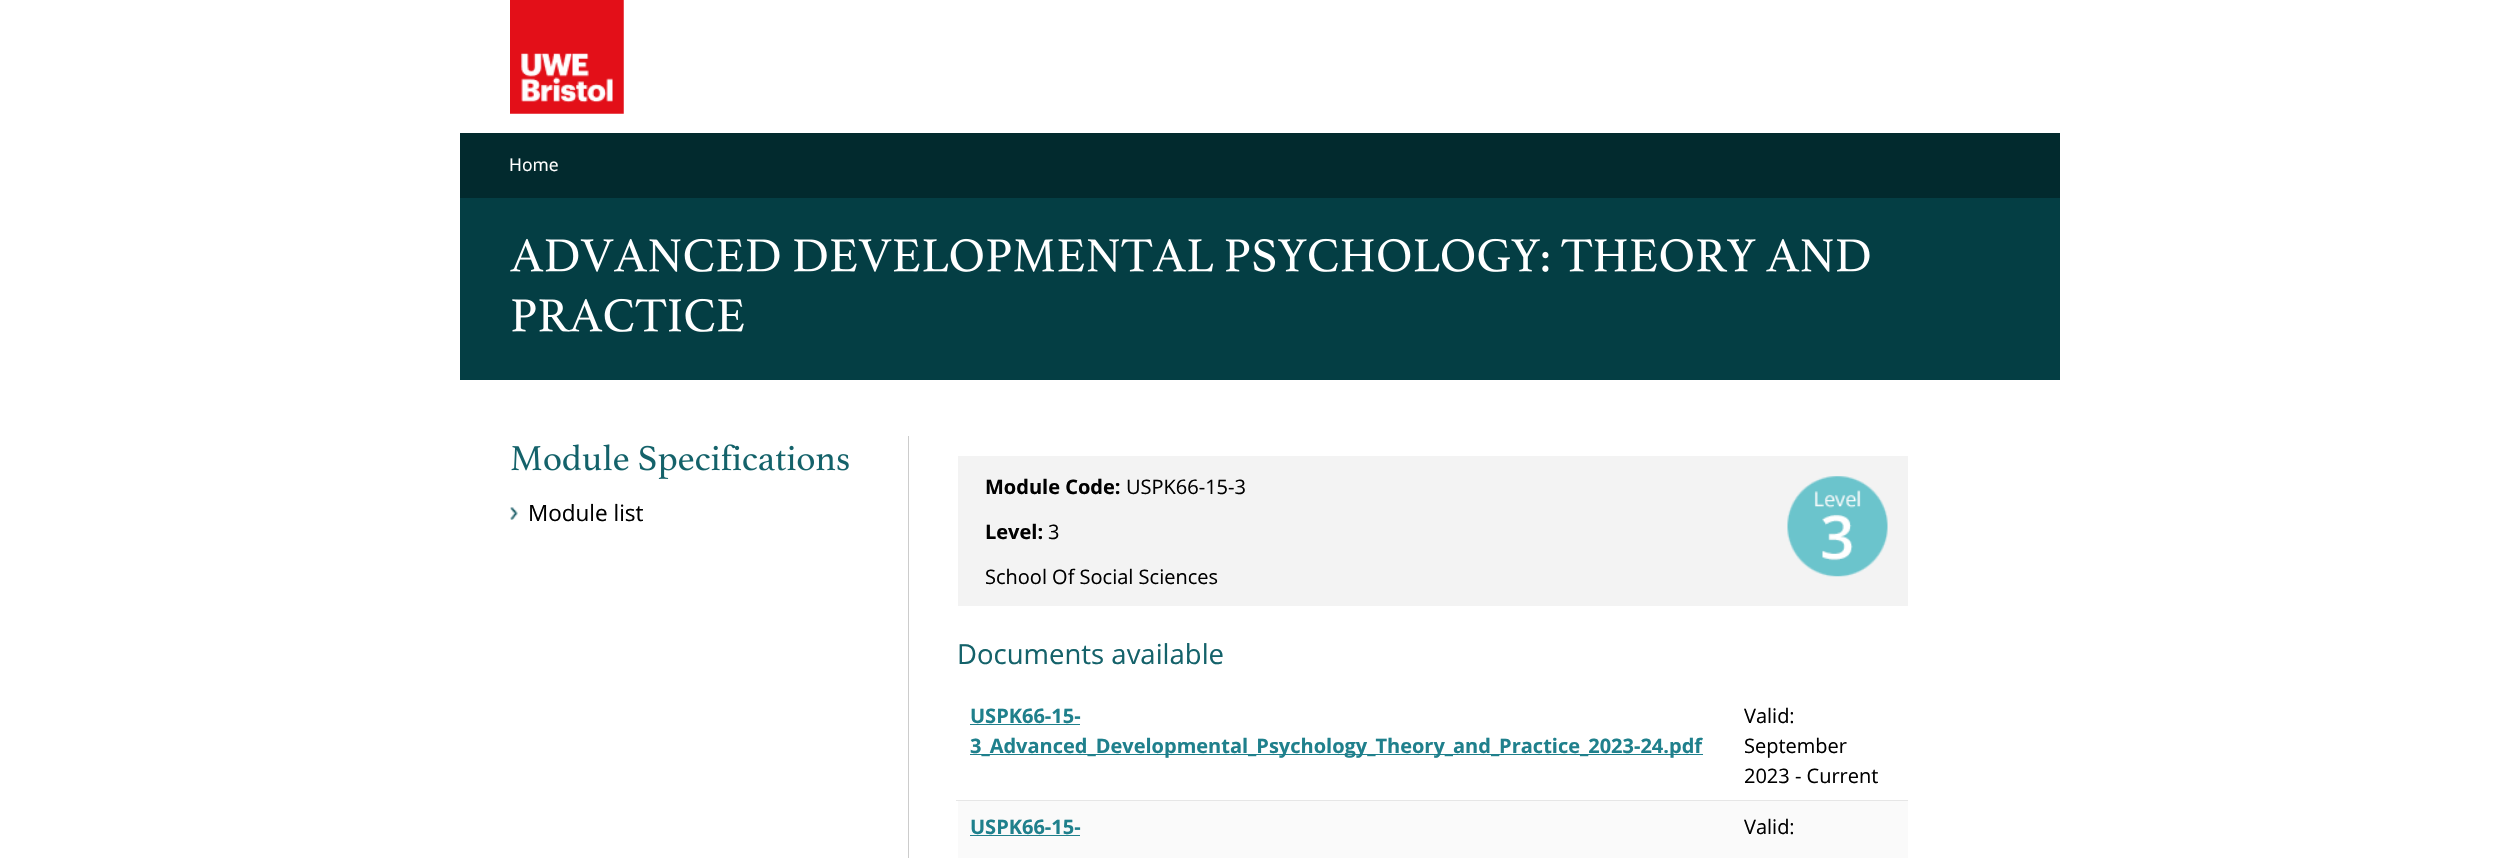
#include "include/core/SkBlurTypes.h"
#include "include/core/SkCanvas.h"
#include "include/core/SkData.h"
#include "include/core/SkFont.h"
#include "include/core/SkFontMgr.h"
#include "include/core/SkImage.h"
#include "include/core/SkMaskFilter.h"
#include "include/core/SkPaint.h"
#include "include/core/SkPathBuilder.h"
#include "include/core/SkTextBlob.h"
#include "include/effects/SkDashPathEffect.h"
#include "include/effects/SkGradientShader.h"
#include "include/utils/SkParsePath.h"

extern sk_sp<SkFontMgr> fontMgr;

static SkFont font(const char* family, int weight, float size, bool italic = false) {
    SkFontStyle style(weight, SkFontStyle::kNormal_Width,
        italic ? SkFontStyle::kItalic_Slant : SkFontStyle::kUpright_Slant);
    SkFont result(fontMgr->matchFamilyStyle(family, style), size);
    result.setSubpixel(true);
    return result;
}

static void drawLabel(SkCanvas* canvas, const char* s, float x, float y, const SkFont& font, SkColor color) {
    SkPaint ink(SkColor4f::FromColor(color));
    ink.setAntiAlias(true);
    canvas->drawString(s, x, y, font, ink);
}

static void fillRect(SkCanvas* canvas, float x, float y, float w, float h, SkColor color) {
    SkPaint ink(SkColor4f::FromColor(color));
    ink.setAntiAlias(true);
    canvas->drawRect(SkRect::MakeXYWH(x, y, w, h), ink);
}

static void drawPhoto(SkCanvas* canvas, const char* path, float x, float y, float w, float h) {
    auto image = SkImages::DeferredFromEncodedData(SkData::MakeFromFileName(path));
    canvas->drawImageRect(image, SkRect::MakeXYWH(x, y, w, h), SkSamplingOptions());
}

void draw(SkCanvas* canvas) {
    SkPaint paint;
    paint.setAntiAlias(true);
    canvas->clear(0xFFFFFFFF);
    drawPhoto(canvas, "assets/img1.png", 510, 0, 114, 114);
    fillRect(canvas, 460, 133, 1600, 65, 0xFF022A2E);
    SkFont font1 = font("Open Sans", 400, 17.5f);
    drawLabel(canvas, "Home", 509, 171, font1, 0xFFFFFFFF);
    fillRect(canvas, 460, 198, 1600, 182, 0xFF043E44);
    drawPhoto(canvas, "assets/img2.png", 510, 238, 1360, 34);
    drawPhoto(canvas, "assets/img3.png", 512, 298, 232, 34);
    fillRect(canvas, 908, 436, 1, 422, 0xFFCCCCCC);
    drawPhoto(canvas, "assets/img4.png", 511, 444, 338, 35);
    drawPhoto(canvas, "assets/img5.png", 510, 507, 8, 13);
    SkFont font2 = font("Open Sans", 400, 22.5f);
    drawLabel(canvas, "Module list", 528, 521, font2, 0xFF000000);
    fillRect(canvas, 958, 456, 950, 150, 0xFFF3F3F3);
    SkFont font3 = font("Open Sans", 700, 20);
    drawLabel(canvas, "Module Code:", 985, 494, font3, 0xFF000000);
    SkFont font4 = font("Open Sans", 400, 20);
    drawLabel(canvas, "USPK66-15-3", 1126, 494, font4, 0xFF000000);
    drawLabel(canvas, "Level:", 985, 539, font3, 0xFF000000);
    drawLabel(canvas, "3", 1048, 539, font4, 0xFF000000);
    drawLabel(canvas, "School Of Social Sciences", 985, 584, font4, 0xFF000000);
    drawPhoto(canvas, "assets/img6.png", 1787, 476, 101, 101);
    SkFont font5 = font("Open Sans", 400, 27.5f);
    drawLabel(canvas, "Documents available", 957, 664, font5, 0xFF14626A);
    drawLabel(canvas, "USPK66-15-", 970, 723, font3, 0xFF1F808C);
    fillRect(canvas, 970, 724, 110, 1, 0xFF1F808C);
    fillRect(canvas, 970, 754, 733, 1, 0xFF1F808C);
    drawLabel(canvas, "3_Advanced_Developmental_Psychology_Theory_and_Practice_2023-24.pdf", 970, 753, font3, 0xFF1F808C);
    drawLabel(canvas, "Valid:", 1744, 723, font4, 0xFF000000);
    drawLabel(canvas, "September", 1744, 753, font4, 0xFF000000);
    drawLabel(canvas, "2023 - Current", 1744, 783, font4, 0xFF000000);
    fillRect(canvas, 958, 801, 950, 57, 0xFFFAFAFA);
    drawLabel(canvas, "USPK66-15-", 970, 834, font3, 0xFF1F808C);
    fillRect(canvas, 970, 835, 110, 1, 0xFF1F808C);
    fillRect(canvas, 956, 800, 952, 1, 0xFFE6E6E6);
    drawLabel(canvas, "Valid:", 1744, 834, font4, 0xFF000000);
}
